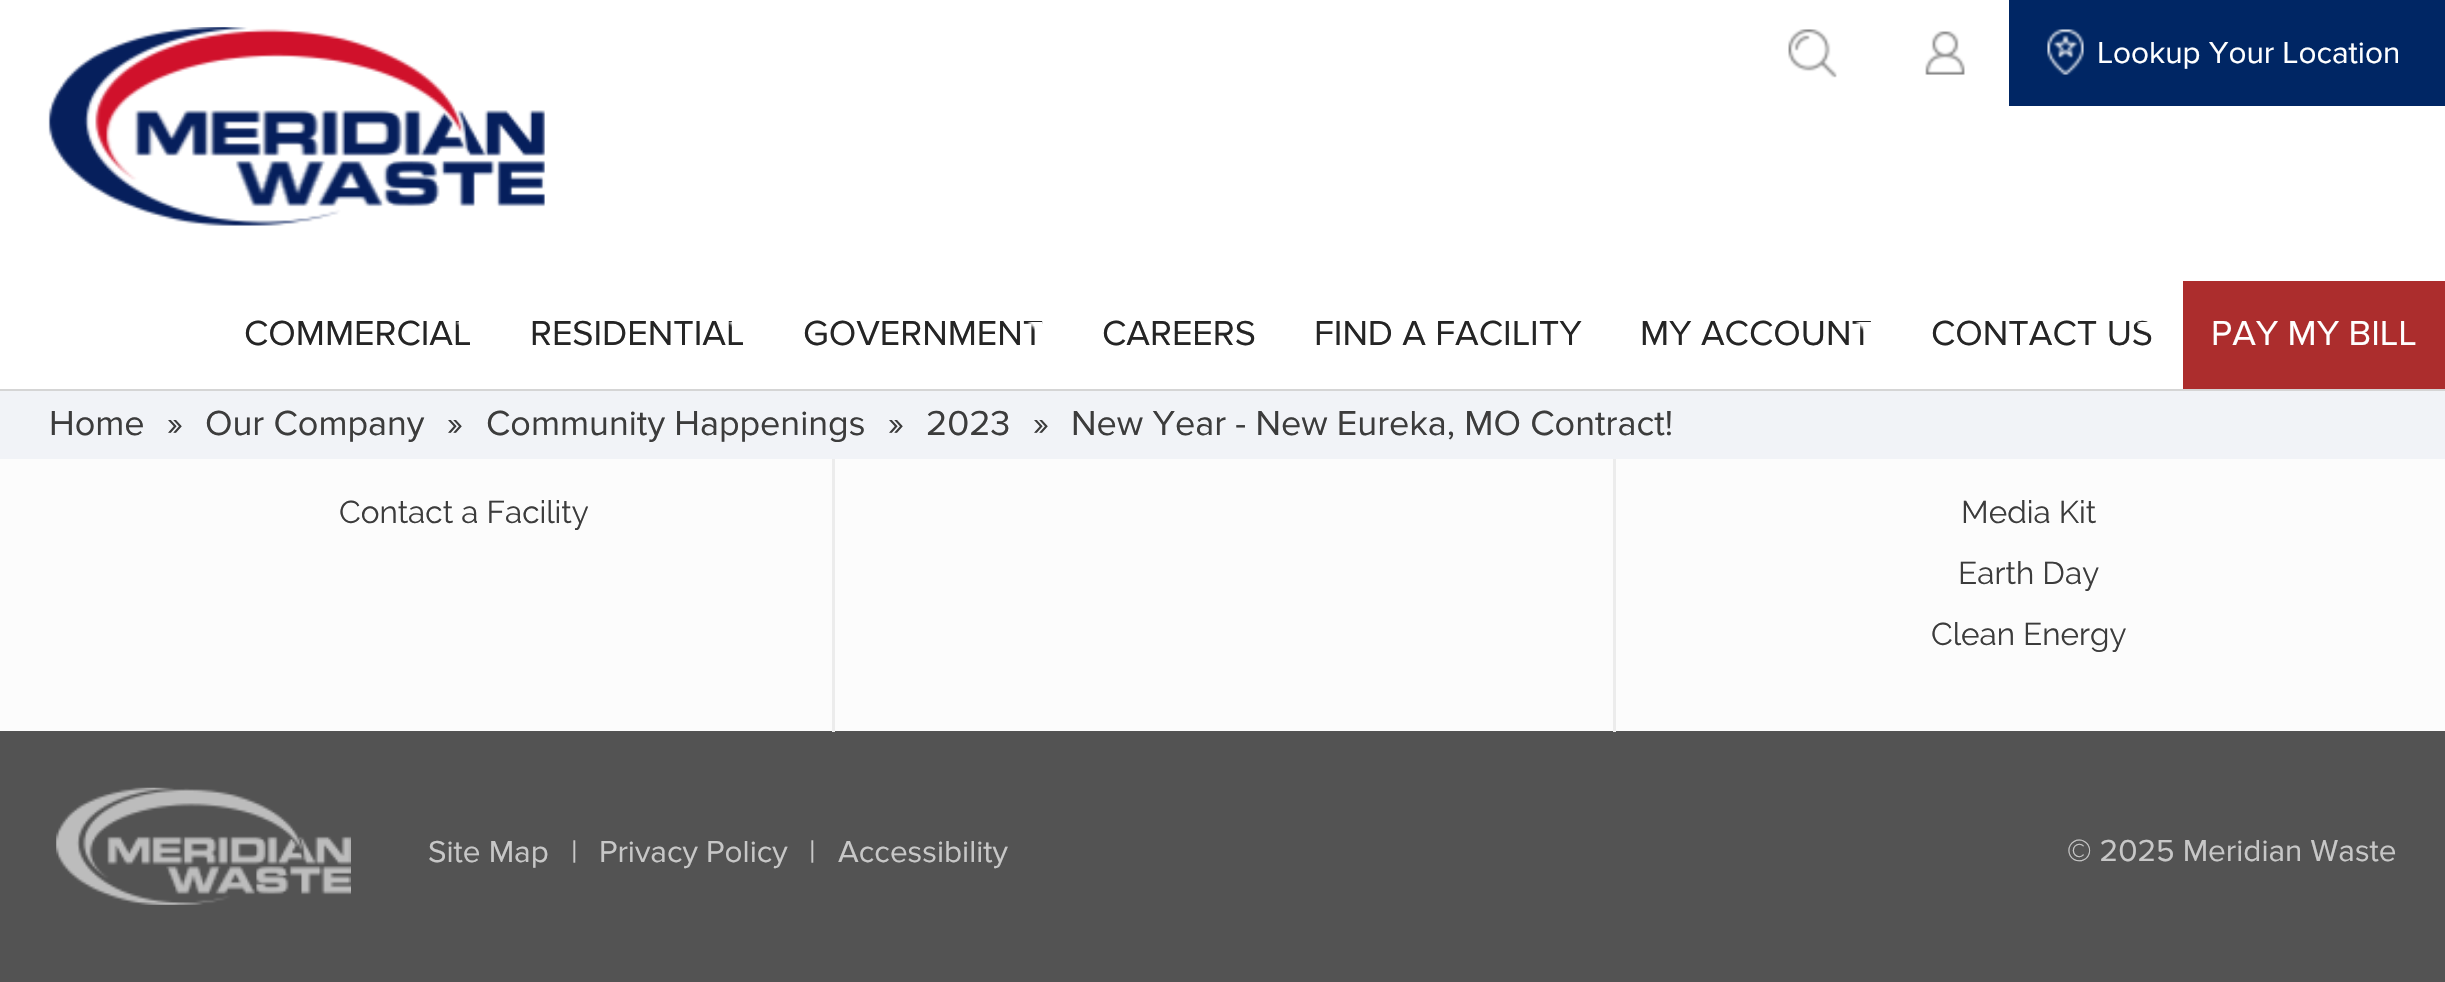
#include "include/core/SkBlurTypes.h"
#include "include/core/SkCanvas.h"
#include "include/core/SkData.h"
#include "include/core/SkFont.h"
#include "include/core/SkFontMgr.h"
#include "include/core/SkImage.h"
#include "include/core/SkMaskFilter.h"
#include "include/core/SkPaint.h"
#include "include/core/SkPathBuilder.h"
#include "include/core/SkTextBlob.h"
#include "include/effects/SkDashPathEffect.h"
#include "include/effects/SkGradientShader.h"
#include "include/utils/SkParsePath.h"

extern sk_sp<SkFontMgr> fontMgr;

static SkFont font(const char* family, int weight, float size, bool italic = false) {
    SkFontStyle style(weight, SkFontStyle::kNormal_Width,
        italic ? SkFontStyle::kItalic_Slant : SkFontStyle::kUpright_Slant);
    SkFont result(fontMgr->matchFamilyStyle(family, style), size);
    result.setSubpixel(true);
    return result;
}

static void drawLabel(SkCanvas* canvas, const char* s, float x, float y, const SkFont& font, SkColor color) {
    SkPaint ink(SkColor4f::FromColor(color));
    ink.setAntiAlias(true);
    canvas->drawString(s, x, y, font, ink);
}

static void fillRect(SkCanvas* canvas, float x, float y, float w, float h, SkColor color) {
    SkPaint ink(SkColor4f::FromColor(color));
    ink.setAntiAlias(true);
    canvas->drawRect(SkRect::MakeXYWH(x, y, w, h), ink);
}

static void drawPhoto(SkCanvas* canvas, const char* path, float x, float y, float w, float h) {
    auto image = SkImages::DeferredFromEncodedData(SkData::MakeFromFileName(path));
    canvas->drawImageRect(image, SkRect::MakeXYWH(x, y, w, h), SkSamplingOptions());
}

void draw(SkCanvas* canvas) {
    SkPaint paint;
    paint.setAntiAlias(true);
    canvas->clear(0xFFFCFCFC);
    fillRect(canvas, 0, 0, 2445, 389, 0xFFFFFFFF);
    drawPhoto(canvas, "assets/img1.png", 1788, 29, 49, 49);
    drawPhoto(canvas, "assets/img2.png", 1925, 31, 40, 44);
    fillRect(canvas, 2009, 0, 436, 106, 0xFF002664);
    drawPhoto(canvas, "assets/img3.png", 2047, 29, 37, 46);
    SkFont font1 = font("Proxima Nova", 400, 31.5f);
    drawLabel(canvas, "Lookup Your Location", 2097, 63, font1, 0xFFFFFFFF);
    drawPhoto(canvas, "assets/img4.png", 48, 27, 497, 199);
    SkFont font2 = font("Proxima Nova", 400, 36);
    drawLabel(canvas, "COMMERCIAL", 244, 345, font2, 0xFF252525);
    drawPhoto(canvas, "assets/img5.png", 456, 322, 3, 5);
    drawLabel(canvas, "RESIDENTIAL", 530, 345, font2, 0xFF252525);
    drawPhoto(canvas, "assets/img6.png", 728, 322, 4, 5);
    drawLabel(canvas, "GOVERNMENT", 803, 345, font2, 0xFF252525);
    drawPhoto(canvas, "assets/img7.png", 1027, 322, 15, 9);
    drawLabel(canvas, "CAREERS", 1102, 345, font2, 0xFF252525);
    drawLabel(canvas, "FIND A FACILITY", 1314, 345, font2, 0xFF252525);
    drawLabel(canvas, "MY ACCOUNT", 1640, 345, font2, 0xFF252525);
    drawPhoto(canvas, "assets/img8.png", 1855, 322, 16, 10);
    drawLabel(canvas, "CONTACT US", 1931, 345, font2, 0xFF252525);
    drawPhoto(canvas, "assets/img9.png", 2137, 322, 14, 12);
    fillRect(canvas, 2183, 281, 262, 108, 0xFFAC2D2D);
    drawLabel(canvas, "PAY MY BILL", 2211, 345, font2, 0xFFFFFFFF);
    fillRect(canvas, 0, 389, 2445, 2, 0xFFD5D5D5);
    fillRect(canvas, 0, 391, 2445, 68, 0xFFF1F3F7);
    drawLabel(canvas, "Home", 49, 435, font2, 0xFF3C3C3C);
    drawLabel(canvas, "»", 167, 435, font2, 0xFF3C3C3C);
    drawLabel(canvas, "Our Company", 205, 435, font2, 0xFF3C3C3C);
    drawLabel(canvas, "»", 447, 435, font2, 0xFF3C3C3C);
    drawLabel(canvas, "Community Happenings", 486, 435, font2, 0xFF3C3C3C);
    drawLabel(canvas, "»", 888, 435, font2, 0xFF3C3C3C);
    drawLabel(canvas, "2023", 926, 435, font2, 0xFF3C3C3C);
    drawLabel(canvas, "»", 1033, 435, font2, 0xFF3C3C3C);
    drawLabel(canvas, "New Year - New Eureka, MO Contract!", 1071, 435, font2, 0xFF3C3C3C);
    SkFont font3 = font("Raleway", 400, 31.5f);
    drawLabel(canvas, "Contact a Facility", 339, 523, font3, 0xFF3C3C3C);
    fillRect(canvas, 0, 731, 2445, 251, 0xFF535353);
    fillRect(canvas, 832, 459, 3, 273, 0xFFECECEC);
    fillRect(canvas, 1613, 459, 3, 273, 0xFFECECEC);
    drawLabel(canvas, "Media Kit", 1961, 523, font3, 0xFF3C3C3C);
    drawLabel(canvas, "Earth Day", 1958, 584, font3, 0xFF3C3C3C);
    drawLabel(canvas, "Clean Energy", 1931, 645, font3, 0xFF3C3C3C);
    drawPhoto(canvas, "assets/img10.png", 56, 787, 295, 118);
    drawLabel(canvas, "Site Map", 428, 862, font1, 0xFFC7C7C7);
    drawLabel(canvas, "|", 571, 862, font1, 0xFFC7C7C7);
    drawLabel(canvas, "Privacy Policy", 599, 862, font1, 0xFFC7C7C7);
    drawLabel(canvas, "|", 809, 862, font1, 0xFFC7C7C7);
    drawLabel(canvas, "Accessibility", 838, 862, font1, 0xFFC7C7C7);
    drawLabel(canvas, "© 2025 Meridian Waste", 2067, 861, font1, 0xFFC7C7C7);
}
